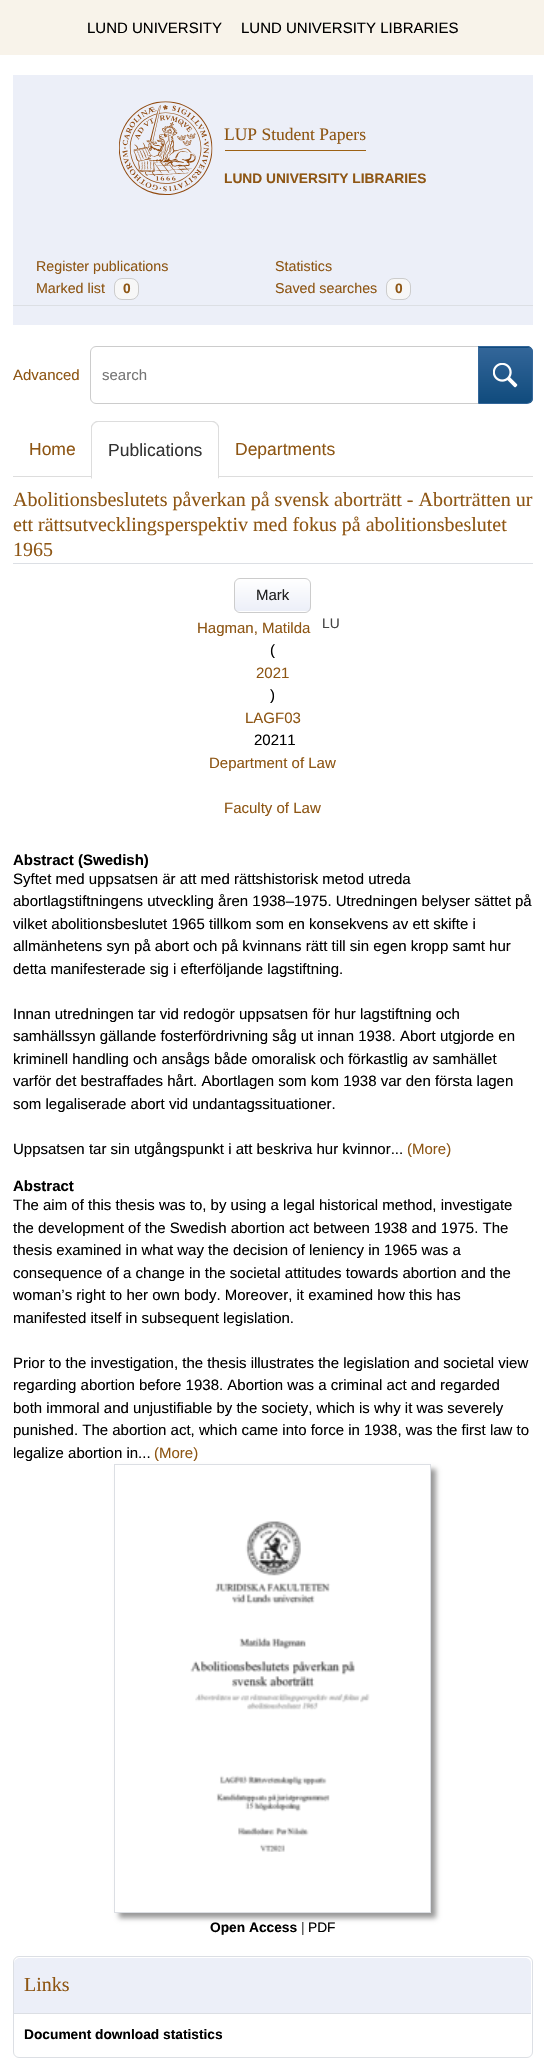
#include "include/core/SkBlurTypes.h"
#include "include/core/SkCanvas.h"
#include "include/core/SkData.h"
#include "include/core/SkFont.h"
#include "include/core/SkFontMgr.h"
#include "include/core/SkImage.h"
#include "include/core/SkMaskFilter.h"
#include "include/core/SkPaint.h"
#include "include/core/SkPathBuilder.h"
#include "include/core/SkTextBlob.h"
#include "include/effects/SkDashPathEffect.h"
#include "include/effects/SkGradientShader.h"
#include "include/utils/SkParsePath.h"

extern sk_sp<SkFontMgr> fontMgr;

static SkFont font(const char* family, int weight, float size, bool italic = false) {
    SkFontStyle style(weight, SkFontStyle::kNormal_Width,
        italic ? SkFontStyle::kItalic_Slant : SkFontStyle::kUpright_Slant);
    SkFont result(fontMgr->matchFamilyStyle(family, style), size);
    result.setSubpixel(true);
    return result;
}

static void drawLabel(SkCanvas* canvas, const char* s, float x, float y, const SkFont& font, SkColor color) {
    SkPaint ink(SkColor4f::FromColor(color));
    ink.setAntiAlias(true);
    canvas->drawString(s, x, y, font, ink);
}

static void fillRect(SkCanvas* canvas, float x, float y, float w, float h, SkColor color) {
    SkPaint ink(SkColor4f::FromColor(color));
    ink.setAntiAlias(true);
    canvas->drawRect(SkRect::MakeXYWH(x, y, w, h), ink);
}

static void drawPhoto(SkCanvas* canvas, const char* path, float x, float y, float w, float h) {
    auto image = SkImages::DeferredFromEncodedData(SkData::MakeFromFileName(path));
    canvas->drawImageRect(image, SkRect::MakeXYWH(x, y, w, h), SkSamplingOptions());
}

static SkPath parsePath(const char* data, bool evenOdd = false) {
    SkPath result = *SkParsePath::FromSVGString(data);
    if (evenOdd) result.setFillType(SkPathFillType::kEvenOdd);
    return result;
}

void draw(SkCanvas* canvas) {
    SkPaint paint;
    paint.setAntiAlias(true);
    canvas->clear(0xFFFFFFFF);
    fillRect(canvas, 0, 0, 544, 55, 0xFFF8F3EA);
    SkFont font1 = font("Liberation Sans", 400, 15);
    drawLabel(canvas, "LUND UNIVERSITY", 87, 33, font1, 0xFF000000);
    drawLabel(canvas, "LUND UNIVERSITY LIBRARIES", 241, 33, font1, 0xFF000000);
    fillRect(canvas, 13, 75, 520, 250, 0xFFECEFF8);
    drawPhoto(canvas, "assets/img1.png", 119, 101, 94, 94);
    SkFont font2 = font("Liberation Serif", 400, 17.5f);
    drawLabel(canvas, "LUP Student Papers", 224, 140, font2, 0xFF8E5614);
    fillRect(canvas, 225, 150, 141, 1, 0xFF9C6114);
    SkFont font3 = font("Liberation Sans", 700, 13.75f);
    drawLabel(canvas, "LUND UNIVERSITY LIBRARIES", 224, 183, font3, 0xFF8E5614);
    fillRect(canvas, 13, 305, 520, 1, 0xFFDCDFE4);
    SkFont font4 = font("Liberation Sans", 400, 14.25f);
    drawLabel(canvas, "Register publications", 36, 271, font4, 0xFF8E5614);
    drawLabel(canvas, "Statistics", 275, 271, font4, 0xFF8E5614);
    drawLabel(canvas, "Marked list", 36, 293, font4, 0xFF8E5614);
    paint.setColor(0xFFF7F7F7);
    canvas->drawRoundRect(SkRect::MakeXYWH(114.5f, 278.5f, 24, 21), 7.5f, 7.5f, paint);
    paint.setStroke(true);
    paint.setStrokeWidth(1);
    paint.setColor(0xFFCCCCCC);
    canvas->drawRoundRect(SkRect::MakeXYWH(114.5f, 278.5f, 24, 21), 7.5f, 7.5f, paint);
    drawLabel(canvas, "0", 123, 293, font3, 0xFF8E5614);
    drawLabel(canvas, "Saved searches", 275, 293, font4, 0xFF8E5614);
    paint.setStroke(false);
    paint.setColor(0xFFF7F7F7);
    canvas->drawRoundRect(SkRect::MakeXYWH(386.5f, 278.5f, 24, 21), 7.5f, 7.5f, paint);
    paint.setStroke(true);
    paint.setColor(0xFFCCCCCC);
    canvas->drawRoundRect(SkRect::MakeXYWH(386.5f, 278.5f, 24, 21), 7.5f, 7.5f, paint);
    drawLabel(canvas, "0", 395, 293, font3, 0xFF8E5614);
    drawLabel(canvas, "Advanced", 13, 380, font1, 0xFF8E5614);
    canvas->drawPath(parsePath("M96 346.5H478.5V403.5H96C93 403.5 90.5 401 90.5 398V352C90.5 349 93 346.5 96 346.5Z"), paint);
    drawLabel(canvas, "search", 102, 380, font1, 0xFF757575);
    canvas->save();
    canvas->clipPath(parsePath("M478 346H527C530.5 346 533 348.5 533 352V398C533 401.5 530.5 404 527 404H478Z"), true);
    paint.setStroke(false);
    {
        const SkColor colors[] = {0xFF336699, 0xFF104B7D};
        const float stops[] = {0, 1};
        const SkPoint ends[] = {{505, 293}, {505, 348}};
        paint.setShader(SkGradientShader::MakeLinear(ends, colors, stops, 2, SkTileMode::kClamp));
        paint.setAlpha(255);
    }
    canvas->drawRect(SkRect::MakeXYWH(478, 346, 55, 2), paint);
    {
        const SkColor colors[] = {0xFF336699, 0xFF104B7D};
        const float stops[] = {0, 1};
        const SkPoint ends[] = {{505, 348}, {505, 403}};
        paint.setShader(SkGradientShader::MakeLinear(ends, colors, stops, 2, SkTileMode::kClamp));
        paint.setAlpha(255);
    }
    canvas->drawRect(SkRect::MakeXYWH(479, 348, 54, 55), paint);
    canvas->restore();
    paint.setStroke(true);
    paint.setShader(nullptr);
    paint.setColor(0xFF336699);
    canvas->drawPath(parsePath("M478.5 346.5H527C530 346.5 532.5 349 532.5 352V398C532.5 401 530 403.5 527 403.5H478.5Z"), paint);
    drawPhoto(canvas, "assets/img2.png", 493, 363, 25, 25);
    fillRect(canvas, 13, 476, 520, 1, 0xFFDDDDDD);
    SkFont font5 = font("Liberation Sans", 400, 17.5f);
    drawLabel(canvas, "Home", 29, 455, font5, 0xFF8E5614);
    paint.setStroke(false);
    paint.setColor(0xFFFFFFFF);
    canvas->drawPath(parsePath("M97 421H213C216.5 421 219 423.5 219 427V479H91V427C91 423.5 93.5 421 97 421Z"), paint);
    paint.setColor(0xFFDDDDDD);
    canvas->drawPath(parsePath("M98 422C96 422 95 423 94 424L93 423L96 421H214L217 423L216 424C215 423 214 422 212 422Z"), paint);
    canvas->drawPath(parsePath("M217 423L219 426V479L218 478V428C218 426 217 425 216 424Z"), paint);
    paint.setColor(0xFFFFFFFF);
    canvas->drawPath(parsePath("M219 479L218 478H92L91 479Z"), paint);
    paint.setColor(0xFFDDDDDD);
    canvas->drawPath(parsePath("M91 479V426L93 423L94 424C93 425 92 426 92 428V478Z"), paint);
    drawLabel(canvas, "Publications", 108, 456, font5, 0xFF333333);
    drawLabel(canvas, "Departments", 235, 455, font5, 0xFF8E5614);
    fillRect(canvas, 13, 563, 520, 1, 0xFFDCDFE4);
    SkFont font6 = font("Liberation Serif", 400, 20);
    drawLabel(canvas, "Abolitionsbeslutets påverkan på svensk aborträtt - Aborträtten ur", 13, 506, font6, 0xFF8E5614);
    drawLabel(canvas, "ett rättsutvecklingsperspektiv med fokus på abolitionsbeslutet", 13, 531, font6, 0xFF8E5614);
    drawLabel(canvas, "1965", 13, 556, font6, 0xFF8E5614);
    canvas->save();
    canvas->clipPath(parsePath("M240 578H305C308.5 578 311 580.5 311 584V607C311 610.5 308.5 613 305 613H240C236.5 613 234 610.5 234 607V584C234 580.5 236.5 578 240 578Z"), true);
    {
        const SkColor colors[] = {0xFFFFFFFF, 0xFFECEFF8};
        const float stops[] = {0, 1};
        const SkPoint ends[] = {{273, 579}, {273, 611}};
        paint.setShader(SkGradientShader::MakeLinear(ends, colors, stops, 2, SkTileMode::kClamp));
        paint.setAlpha(255);
    }
    canvas->drawRect(SkRect::MakeXYWH(234, 579, 77, 32), paint);
    canvas->restore();
    paint.setStroke(true);
    paint.setShader(nullptr);
    paint.setColor(0xFFCCCCCC);
    canvas->drawRoundRect(SkRect::MakeXYWH(234.5f, 578.5f, 76, 34), 5.5f, 5.5f, paint);
    drawLabel(canvas, "Mark", 256, 600, font1, 0xFF222222);
    drawLabel(canvas, "Hagman, Matilda", 197, 633, font1, 0xFF8E5614);
    SkFont font7 = font("Liberation Sans", 400, 13.75f);
    drawLabel(canvas, "LU", 322, 628, font7, 0xFF444444);
    drawLabel(canvas, "(", 270, 655, font1, 0xFF000000);
    drawLabel(canvas, "2021", 256, 678, font1, 0xFF8E5614);
    drawLabel(canvas, ")", 270, 700, font1, 0xFF000000);
    drawLabel(canvas, "LAGF03", 245, 723, font1, 0xFF8E5614);
    drawLabel(canvas, "20211", 254, 745, font1, 0xFF000000);
    drawLabel(canvas, "Department of Law", 209, 768, font1, 0xFF8E5614);
    drawLabel(canvas, "Faculty of Law", 224, 813, font1, 0xFF8E5614);
    SkFont font8 = font("Liberation Sans", 700, 15);
    drawLabel(canvas, "Abstract (Swedish)", 13, 865, font8, 0xFF000000);
    drawLabel(canvas, "Syftet med uppsatsen är att med rättshistorisk metod utreda", 13, 884, font1, 0xFF000000);
    drawLabel(canvas, "abortlagstiftningens utveckling åren 1938–1975. Utredningen belyser sättet på", 13, 906, font1, 0xFF000000);
    drawLabel(canvas, "vilket abolitionsbeslutet 1965 tillkom som en konsekvens av ett skifte i", 13, 929, font1, 0xFF000000);
    drawLabel(canvas, "allmänhetens syn på abort och på kvinnans rätt till sin egen kropp samt hur", 13, 951, font1, 0xFF000000);
    drawLabel(canvas, "detta manifesterade sig i efterföljande lagstiftning.", 13, 974, font1, 0xFF000000);
    drawLabel(canvas, "Innan utredningen tar vid redogör uppsatsen för hur lagstiftning och", 13, 1019, font1, 0xFF000000);
    drawLabel(canvas, "samhällssyn gällande fosterfördrivning såg ut innan 1938. Abort utgjorde en", 13, 1041, font1, 0xFF000000);
    drawLabel(canvas, "kriminell handling och ansågs både omoralisk och förkastlig av samhället", 13, 1064, font1, 0xFF000000);
    drawLabel(canvas, "varför det bestraffades hårt. Abortlagen som kom 1938 var den första lagen", 13, 1086, font1, 0xFF000000);
    drawLabel(canvas, "som legaliserade abort vid undantagssituationer.", 13, 1109, font1, 0xFF000000);
    drawLabel(canvas, "Uppsatsen tar sin utgångspunkt i att beskriva hur kvinnor...", 13, 1154, font1, 0xFF000000);
    drawLabel(canvas, "(More)", 407, 1154, font1, 0xFF8E5614);
    drawLabel(canvas, "Abstract", 13, 1191, font8, 0xFF000000);
    drawLabel(canvas, "The aim of this thesis was to, by using a legal historical method, investigate", 13, 1210, font1, 0xFF000000);
    drawLabel(canvas, "the development of the Swedish abortion act between 1938 and 1975. The", 13, 1233, font1, 0xFF000000);
    drawLabel(canvas, "thesis examined in what way the decision of leniency in 1965 was a", 13, 1255, font1, 0xFF000000);
    drawLabel(canvas, "consequence of a change in the societal attitudes towards abortion and the", 13, 1278, font1, 0xFF000000);
    drawLabel(canvas, "woman’s right to her own body. Moreover, it examined how this has", 13, 1300, font1, 0xFF000000);
    drawLabel(canvas, "manifested itself in subsequent legislation.", 13, 1323, font1, 0xFF000000);
    drawLabel(canvas, "Prior to the investigation, the thesis illustrates the legislation and societal view", 13, 1368, font1, 0xFF000000);
    drawLabel(canvas, "regarding abortion before 1938. Abortion was a criminal act and regarded", 13, 1390, font1, 0xFF000000);
    drawLabel(canvas, "both immoral and unjustifiable by the society, which is why it was severely", 13, 1413, font1, 0xFF000000);
    drawLabel(canvas, "punished. The abortion act, which came into force in 1938, was the first law to", 13, 1435, font1, 0xFF000000);
    drawLabel(canvas, "legalize abortion in...", 13, 1458, font1, 0xFF000000);
    drawLabel(canvas, "(More)", 154, 1458, font1, 0xFF8E5614);
    canvas->save();
    canvas->clipPath(parsePath("M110 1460H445V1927H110ZM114 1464H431V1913H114Z", true), true);
    paint.setStroke(false);
    paint.setColor(0xFF999999);
    paint.setMaskFilter(SkMaskFilter::MakeBlur(kNormal_SkBlurStyle, 2.5f));
    canvas->drawRect(SkRect::MakeXYWH(119, 1469, 317, 449), paint);
    paint.setMaskFilter(nullptr);
    canvas->restore();
    paint.setStroke(true);
    paint.setColor(0xFFDCDFE4);
    canvas->drawRect(SkRect::MakeXYWH(114.5f, 1464.5f, 316, 448), paint);
    drawPhoto(canvas, "assets/img3.png", 190, 1521, 180, 331);
    drawLabel(canvas, "Open Access", 210, 1932, font3, 0xFF000000);
    drawLabel(canvas, "|", 301, 1932, font7, 0xFF444444);
    drawLabel(canvas, "PDF", 308, 1932, font7, 0xFF000000);
    canvas->drawRoundRect(SkRect::MakeXYWH(13.5f, 1956.5f, 519, 101), 5.5f, 5.5f, paint);
    paint.setStroke(false);
    paint.setColor(0xFFECEFF8);
    canvas->drawPath(parsePath("M20 1958H525C528.5 1958 531 1960.5 531 1964V2014H14V1964C14 1960.5 16.5 1958 20 1958Z"), paint);
    fillRect(canvas, 14, 2013, 517, 1, 0xFFDCDFE4);
    drawLabel(canvas, "Links", 24, 1991, font6, 0xFF8E5614);
    drawLabel(canvas, "Document download statistics", 24, 2039, font3, 0xFF000000);
}
